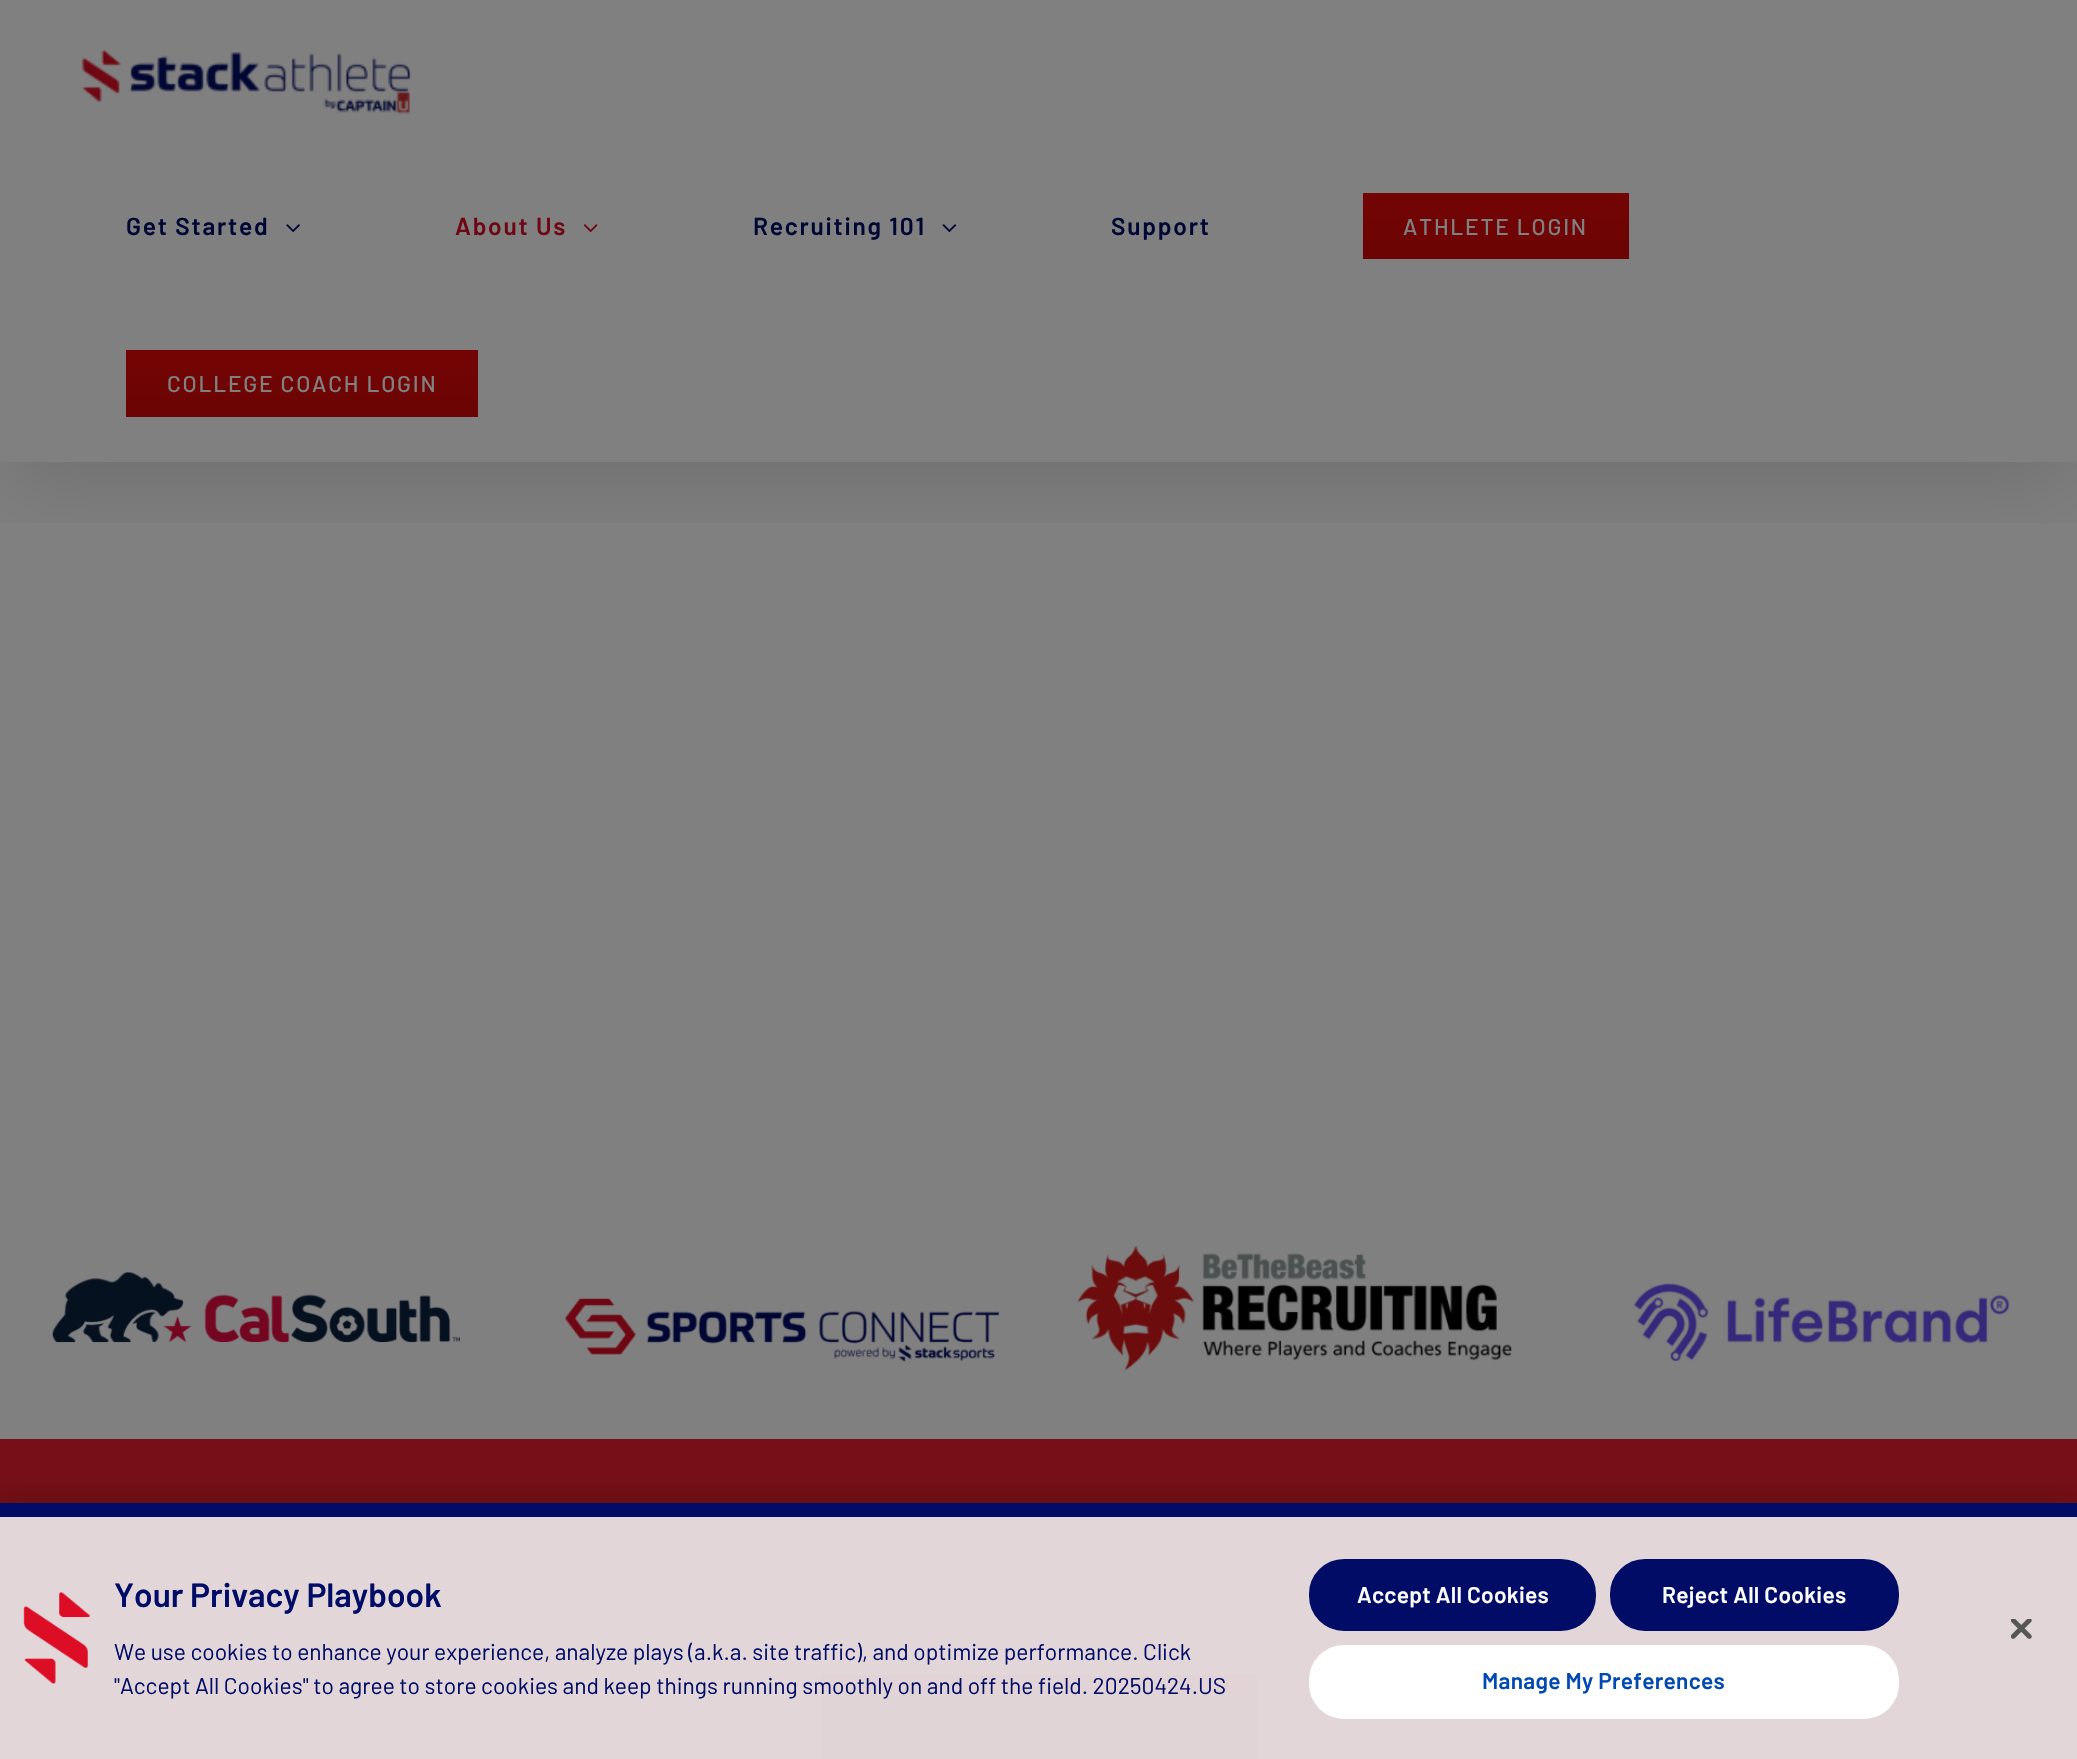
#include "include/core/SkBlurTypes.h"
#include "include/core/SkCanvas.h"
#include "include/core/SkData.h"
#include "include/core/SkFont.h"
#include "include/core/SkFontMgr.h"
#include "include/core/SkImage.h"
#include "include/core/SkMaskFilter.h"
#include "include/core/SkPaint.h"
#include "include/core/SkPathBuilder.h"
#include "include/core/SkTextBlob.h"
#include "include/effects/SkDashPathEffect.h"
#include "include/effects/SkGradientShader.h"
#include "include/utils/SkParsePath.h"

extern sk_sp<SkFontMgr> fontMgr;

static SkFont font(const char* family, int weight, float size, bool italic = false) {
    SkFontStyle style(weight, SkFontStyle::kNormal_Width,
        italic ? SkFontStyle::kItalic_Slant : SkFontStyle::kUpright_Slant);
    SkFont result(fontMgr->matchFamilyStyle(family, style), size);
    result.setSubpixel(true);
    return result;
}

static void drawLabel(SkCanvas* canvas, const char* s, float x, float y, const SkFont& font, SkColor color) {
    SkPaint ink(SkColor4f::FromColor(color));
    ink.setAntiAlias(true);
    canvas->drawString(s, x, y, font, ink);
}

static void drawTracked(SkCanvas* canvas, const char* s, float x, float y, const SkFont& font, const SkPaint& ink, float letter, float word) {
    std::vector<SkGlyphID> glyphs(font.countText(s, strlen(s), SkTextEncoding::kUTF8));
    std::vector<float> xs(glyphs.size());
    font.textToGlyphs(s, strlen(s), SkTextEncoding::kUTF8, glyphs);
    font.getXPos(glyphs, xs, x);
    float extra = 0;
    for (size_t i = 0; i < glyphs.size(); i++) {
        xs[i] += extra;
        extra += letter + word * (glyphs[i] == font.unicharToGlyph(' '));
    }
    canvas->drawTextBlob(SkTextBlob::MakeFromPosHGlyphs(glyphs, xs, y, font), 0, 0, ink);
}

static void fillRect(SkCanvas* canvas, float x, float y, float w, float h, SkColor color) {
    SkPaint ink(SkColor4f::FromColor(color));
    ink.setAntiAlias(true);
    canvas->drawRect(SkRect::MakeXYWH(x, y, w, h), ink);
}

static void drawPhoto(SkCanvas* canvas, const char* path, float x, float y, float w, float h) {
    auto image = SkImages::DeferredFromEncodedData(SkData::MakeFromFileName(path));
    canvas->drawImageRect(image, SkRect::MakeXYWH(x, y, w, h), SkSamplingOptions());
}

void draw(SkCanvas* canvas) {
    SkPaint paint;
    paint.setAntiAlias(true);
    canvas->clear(0xFF808080);
    canvas->save();
    canvas->clipRect(SkRect::MakeXYWH(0, 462, 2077, 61));
    paint.setColor(0x24000000);
    paint.setMaskFilter(SkMaskFilter::MakeBlur(kNormal_SkBlurStyle, 44));
    canvas->drawRect(SkRect::MakeXYWH(4, 21, 2070, 455), paint);
    paint.setMaskFilter(nullptr);
    canvas->restore();
    drawPhoto(canvas, "assets/img1.png", 81, 49, 331, 66);
    SkFont font1 = font("Barlow", 600, 24.5f);
    paint.setColor(0xFF000633);
    drawTracked(canvas, "Get Started", 126, 235, font1, paint, 1.75f, 0);
    drawPhoto(canvas, "assets/img2.png", 286, 224, 14, 9);
    paint.setColor(0xFF6F0713);
    drawTracked(canvas, "About Us", 455, 235, font1, paint, 1.75f, 0);
    drawPhoto(canvas, "assets/img3.png", 583, 224, 15, 9);
    paint.setColor(0xFF000633);
    drawTracked(canvas, "Recruiting 101", 753, 235, font1, paint, 1.75f, 0);
    drawPhoto(canvas, "assets/img4.png", 942, 224, 15, 9);
    drawTracked(canvas, "Support", 1111, 235, font1, paint, 1.75f, 0);
    {
        const SkColor colors[] = {0xFF740404, 0xFF6B0404};
        const float stops[] = {0, 1};
        const SkPoint ends[] = {{1496, 192}, {1496, 259}};
        paint.setShader(SkGradientShader::MakeLinear(ends, colors, stops, 2, SkTileMode::kClamp));
        paint.setAlpha(255);
    }
    canvas->drawRect(SkRect::MakeXYWH(1363, 193, 266, 66), paint);
    SkFont font2 = font("Barlow", 500, 22.75f);
    paint.setShader(nullptr);
    paint.setColor(0xFF808080);
    drawTracked(canvas, "ATHLETE LOGIN", 1403, 235, font2, paint, 1.75f, 0);
    {
        const SkColor colors[] = {0xFF740404, 0xFF6B0404};
        const float stops[] = {0, 1};
        const SkPoint ends[] = {{302, 350}, {302, 417}};
        paint.setShader(SkGradientShader::MakeLinear(ends, colors, stops, 2, SkTileMode::kClamp));
        paint.setAlpha(255);
    }
    canvas->drawRect(SkRect::MakeXYWH(126, 350, 352, 67), paint);
    paint.setShader(nullptr);
    paint.setColor(0xFF808080);
    drawTracked(canvas, "COLLEGE COACH LOGIN", 167, 392, font2, paint, 1.75f, 0);
    drawPhoto(canvas, "assets/img5.png", 52, 1272, 409, 71);
    drawPhoto(canvas, "assets/img6.png", 565, 1298, 435, 64);
    drawPhoto(canvas, "assets/img7.png", 1078, 1246, 434, 124);
    drawPhoto(canvas, "assets/img8.png", 1633, 1283, 377, 79);
    fillRect(canvas, 0, 1439, 2077, 320, 0xFF760F17);
    {
        const SkColor colors[] = {0xFF740404, 0xFF6B0404};
        const float stops[] = {0, 1};
        const SkPoint ends[] = {{1039, 1675}, {1039, 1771}};
        paint.setShader(SkGradientShader::MakeLinear(ends, colors, stops, 2, SkTileMode::kClamp));
        paint.setAlpha(255);
    }
    canvas->drawRect(SkRect::MakeXYWH(821, 1675, 436, 84), paint);
    canvas->save();
    canvas->clipRect(SkRect::MakeXYWH(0, 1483, 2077, 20));
    paint.setShader(nullptr);
    paint.setColor(0x33000000);
    paint.setMaskFilter(SkMaskFilter::MakeBlur(kNormal_SkBlurStyle, 16));
    canvas->drawRect(SkRect::MakeXYWH(0, 1503, 2077, 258), paint);
    paint.setMaskFilter(nullptr);
    canvas->restore();
    fillRect(canvas, 0, 1517, 2077, 242, 0xD9F5F8FA);
    fillRect(canvas, 0, 1503, 2077, 14, 0xFF000C66);
    drawPhoto(canvas, "assets/img9.png", 23, 1591, 68, 94);
    SkFont font3 = font("Barlow", 600, 33.5f);
    drawLabel(canvas, "Your Privacy Playbook", 114, 1607, font3, 0xFF000C66);
    SkFont font4 = font("Barlow", 400, 22.75f);
    drawLabel(canvas, "We use cookies to enhance your experience, analyze plays (a.k.a. site traffic), and optimize performance. Click", 114, 1660, font4, 0xFF000C66);
    drawLabel(canvas, "\"Accept All Cookies\" to agree to store cookies and keep things running smoothly on and off the field. 20250424.US", 114, 1694, font4, 0xFF000C66);
    paint.setColor(0xFF000C66);
    canvas->drawRoundRect(SkRect::MakeXYWH(1310, 1560, 285, 70), 34, 34, paint);
    paint.setStroke(true);
    paint.setStrokeWidth(2);
    canvas->drawRoundRect(SkRect::MakeXYWH(1310, 1560, 285, 70), 34, 34, paint);
    SkFont font5 = font("Barlow", 600, 22.75f);
    paint.setStroke(false);
    paint.setColor(0xFFFFFFFF);
    drawTracked(canvas, "Accept All Cookies", 1357, 1603, font5, paint, 0.25f, 0);
    paint.setColor(0xFF000C66);
    canvas->drawRoundRect(SkRect::MakeXYWH(1611, 1560, 287, 70), 34, 34, paint);
    paint.setStroke(true);
    canvas->drawRoundRect(SkRect::MakeXYWH(1611, 1560, 287, 70), 34, 34, paint);
    paint.setStroke(false);
    paint.setColor(0xFFFFFFFF);
    drawTracked(canvas, "Reject All Cookies", 1662, 1603, font5, paint, 0.25f, 0);
    canvas->drawRoundRect(SkRect::MakeXYWH(1310, 1646, 588, 72), 34, 34, paint);
    paint.setStroke(true);
    canvas->drawRoundRect(SkRect::MakeXYWH(1310, 1646, 588, 72), 34, 34, paint);
    paint.setStroke(false);
    paint.setColor(0xFF0049B3);
    drawTracked(canvas, "Manage My Preferences", 1482, 1689, font5, paint, 0.25f, 0);
    drawPhoto(canvas, "assets/img10.png", 2011, 1619, 21, 20);
}
